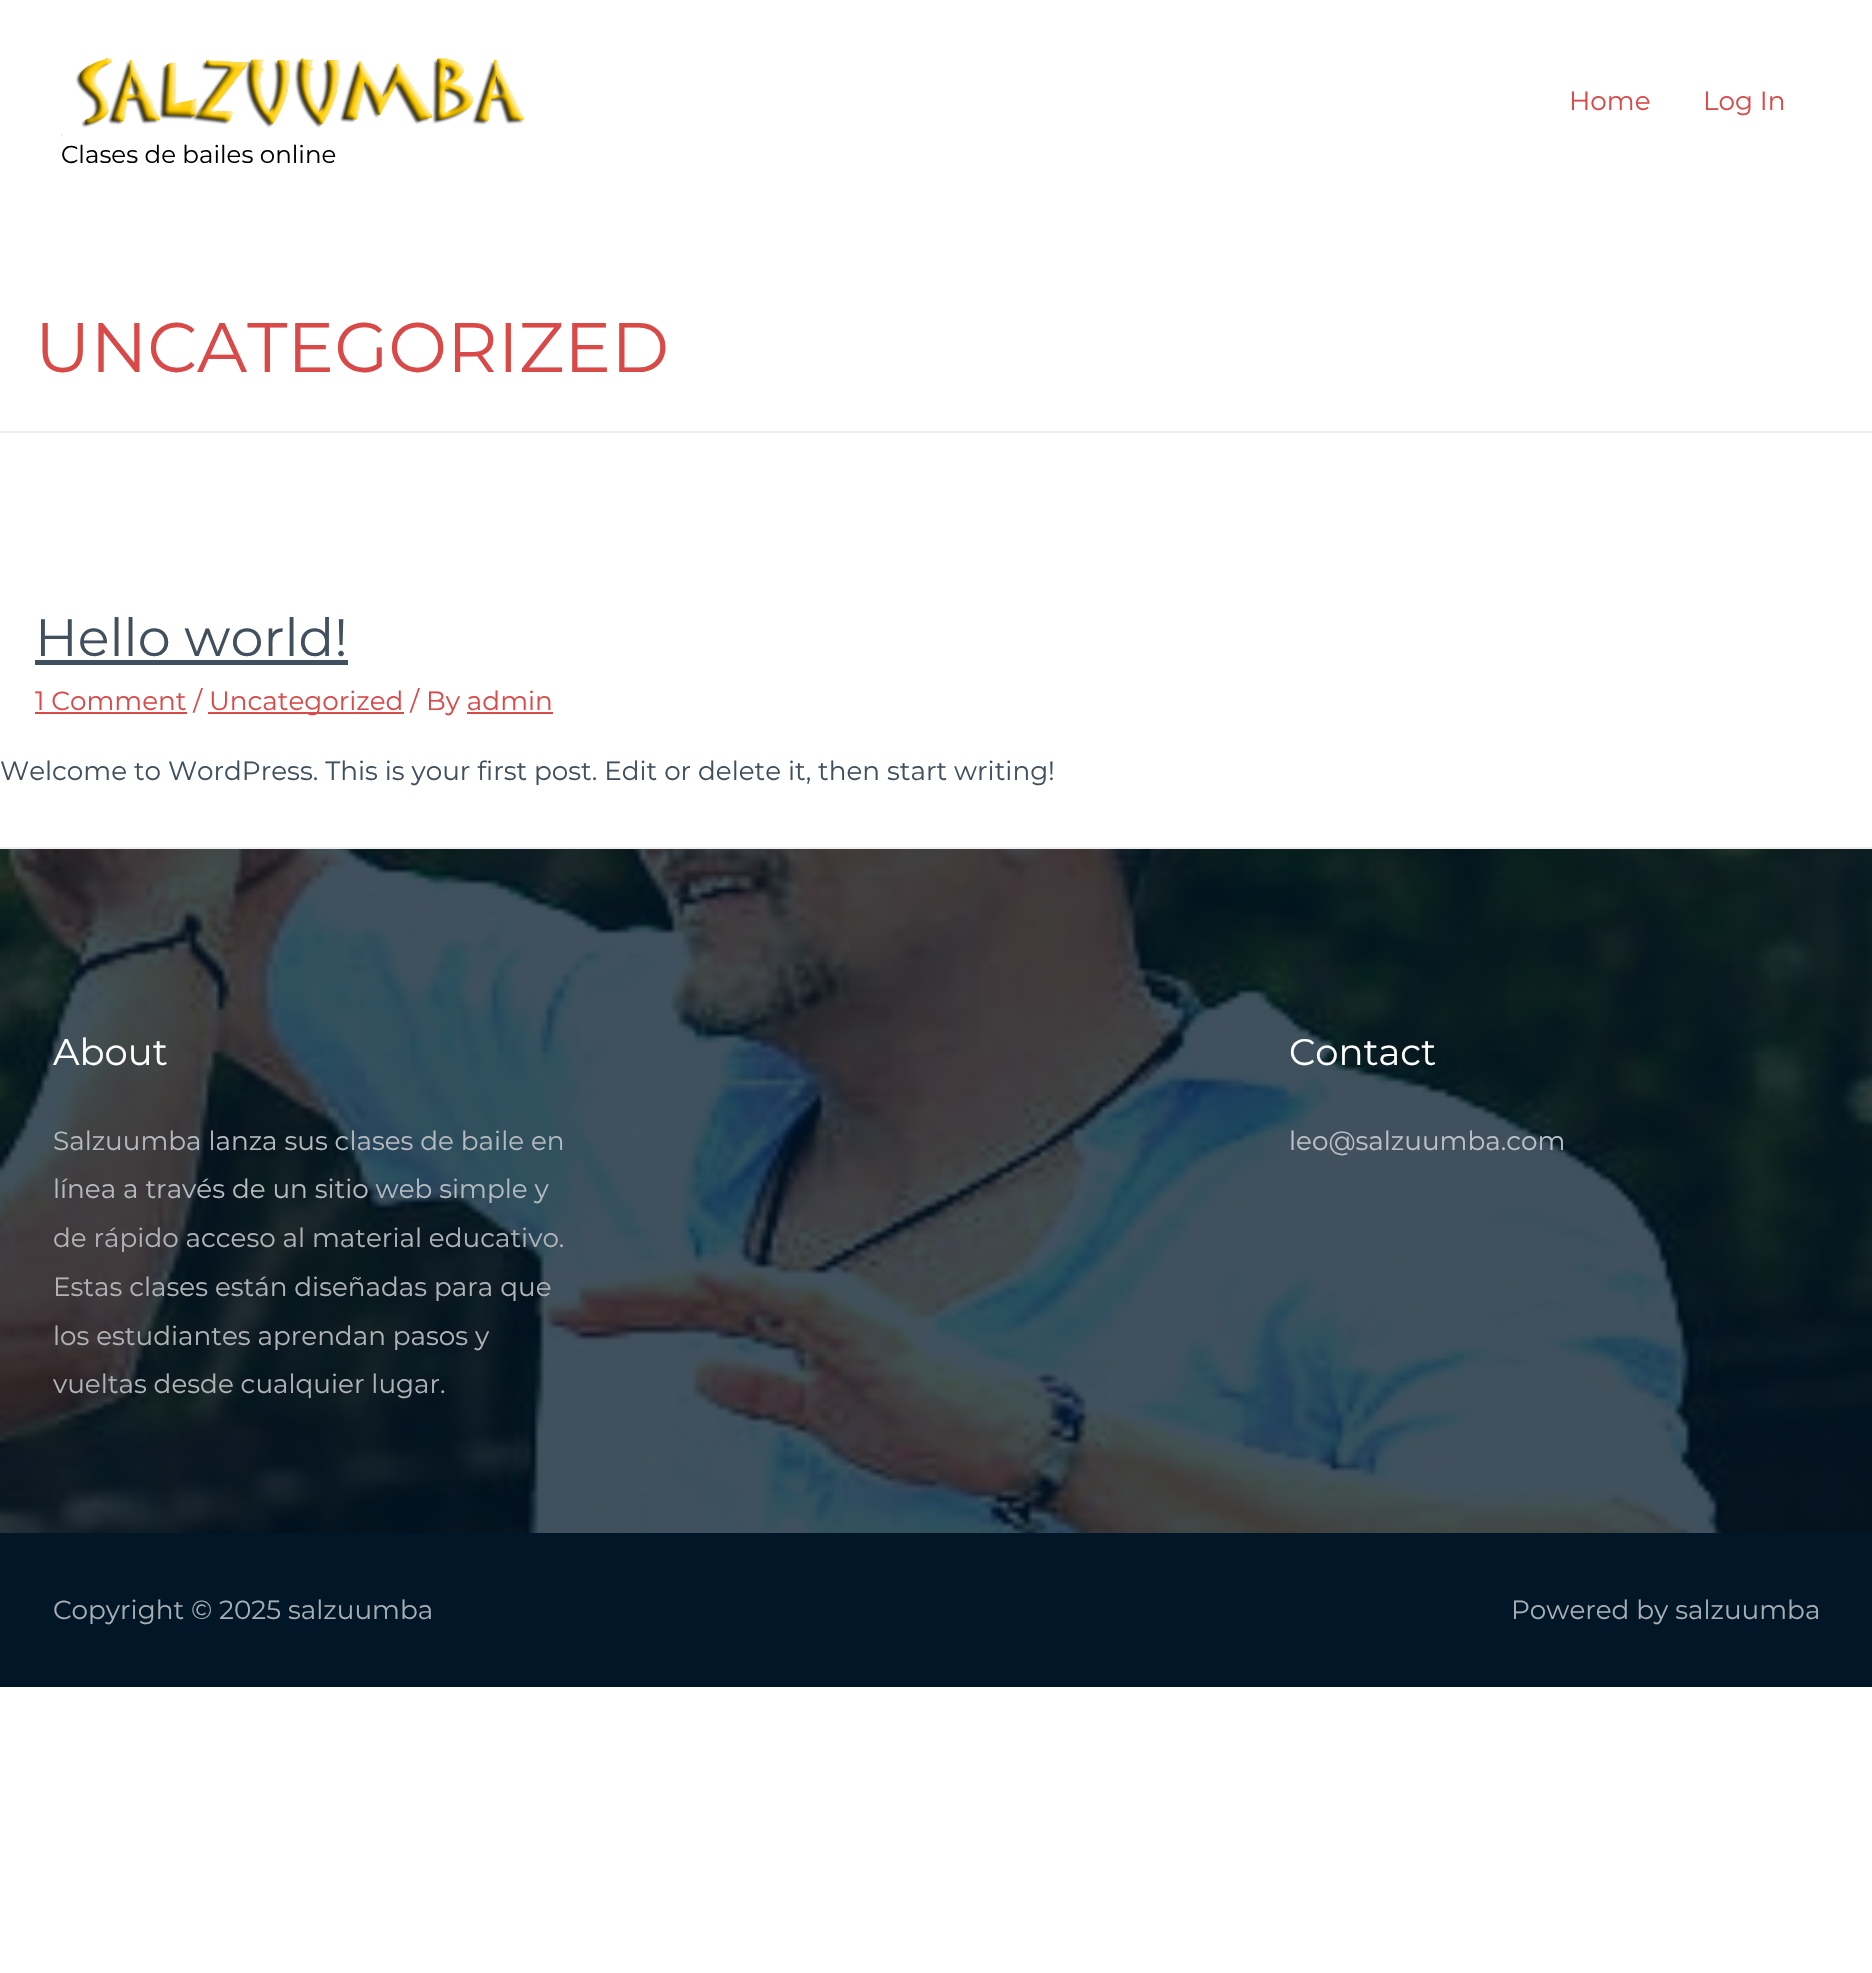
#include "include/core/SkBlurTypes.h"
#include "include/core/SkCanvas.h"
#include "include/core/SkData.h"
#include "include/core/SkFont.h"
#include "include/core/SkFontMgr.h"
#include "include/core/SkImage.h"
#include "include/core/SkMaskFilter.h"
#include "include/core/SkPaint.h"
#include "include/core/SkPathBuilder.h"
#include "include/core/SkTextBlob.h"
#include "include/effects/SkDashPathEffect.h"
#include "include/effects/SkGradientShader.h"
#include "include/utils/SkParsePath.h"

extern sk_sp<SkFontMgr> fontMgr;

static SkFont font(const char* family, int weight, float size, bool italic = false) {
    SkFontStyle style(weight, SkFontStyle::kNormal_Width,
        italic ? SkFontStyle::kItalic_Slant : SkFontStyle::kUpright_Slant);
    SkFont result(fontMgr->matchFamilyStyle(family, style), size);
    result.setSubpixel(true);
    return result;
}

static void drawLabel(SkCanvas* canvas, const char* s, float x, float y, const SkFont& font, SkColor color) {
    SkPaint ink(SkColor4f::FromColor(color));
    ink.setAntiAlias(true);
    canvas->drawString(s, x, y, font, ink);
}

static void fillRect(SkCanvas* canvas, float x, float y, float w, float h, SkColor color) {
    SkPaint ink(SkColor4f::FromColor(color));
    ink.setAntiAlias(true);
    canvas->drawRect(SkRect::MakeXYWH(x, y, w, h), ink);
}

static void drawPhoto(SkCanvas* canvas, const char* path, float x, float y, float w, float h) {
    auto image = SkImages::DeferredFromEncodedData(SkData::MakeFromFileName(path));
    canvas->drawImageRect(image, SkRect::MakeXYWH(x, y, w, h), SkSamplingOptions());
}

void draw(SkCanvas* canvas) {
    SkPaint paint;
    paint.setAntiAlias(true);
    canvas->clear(0xFFFFFFFF);
    SkFont font1 = font("Montserrat", 400, 26.25f);
    drawLabel(canvas, "Home", 1569, 110, font1, 0xFFD94948);
    drawLabel(canvas, "Log In", 1703, 110, font1, 0xFFD94948);
    drawPhoto(canvas, "assets/img1.png", 61, 58, 463, 79);
    SkFont font2 = font("Montserrat", 400, 24.5f);
    drawLabel(canvas, "Clases de bailes online", 61, 163, font2, 0xFF000000);
    fillRect(canvas, 0, 431, 1872, 2, 0xFFEEEEEE);
    SkFont font3 = font("Montserrat", 400, 70);
    drawLabel(canvas, "UNCATEGORIZED", 35, 372, font3, 0xFFD94948);
    fillRect(canvas, 0, 847, 1872, 2, 0xFFEEEEEE);
    SkFont font4 = font("Montserrat", 400, 52.5f);
    drawLabel(canvas, "Hello world!", 35, 656, font4, 0xFF41505E);
    fillRect(canvas, 35, 660, 313, 5, 0xFF41505E);
    fillRect(canvas, 35, 712, 152, 2, 0xFFD94948);
    drawLabel(canvas, "1 Comment /", 35, 710, font1, 0xFFD94948);
    fillRect(canvas, 208, 712, 196, 2, 0xFFD94948);
    drawLabel(canvas, "Uncategorized / By admin", 209, 710, font1, 0xFFD94948);
    fillRect(canvas, 467, 712, 86, 2, 0xFFD94948);
    drawLabel(canvas, "Welcome to WordPress. This is your first post. Edit or delete it, then start writing!", 0, 780, font1, 0xFF41505E);
    fillRect(canvas, 0, 1533, 1872, 154, 0xFF011627);
    drawPhoto(canvas, "assets/img2.png", 0, 849, 1872, 684);
    SkFont font5 = font("Montserrat", 400, 37);
    drawLabel(canvas, "About", 53, 1065, font5, 0xFFFFFFFF);
    drawLabel(canvas, "Salzuumba lanza sus clases de baile en", 53, 1150, font1, 0xFFB4BABE);
    drawLabel(canvas, "línea a través de un sitio web simple y", 53, 1198, font1, 0xFFB4BABE);
    drawLabel(canvas, "de rápido acceso al material educativo.", 53, 1247, font1, 0xFFB0B3B6);
    drawLabel(canvas, "Estas clases están diseñadas para que", 53, 1296, font1, 0xFFB0B3B6);
    drawLabel(canvas, "los estudiantes aprendan pasos y", 53, 1345, font1, 0xFFB0B3B6);
    drawLabel(canvas, "vueltas desde cualquier lugar.", 53, 1393, font1, 0xFFB0B3B6);
    drawLabel(canvas, "Contact", 1289, 1065, font5, 0xFFFFFFFF);
    drawLabel(canvas, "leo@salzuumba.com", 1289, 1150, font1, 0xFFBBC1C6);
    drawLabel(canvas, "Copyright © 2025 salzuumba", 53, 1619, font1, 0xFFA6ADB3);
    drawLabel(canvas, "Powered by salzuumba", 1511, 1619, font1, 0xFFA6ADB3);
}
